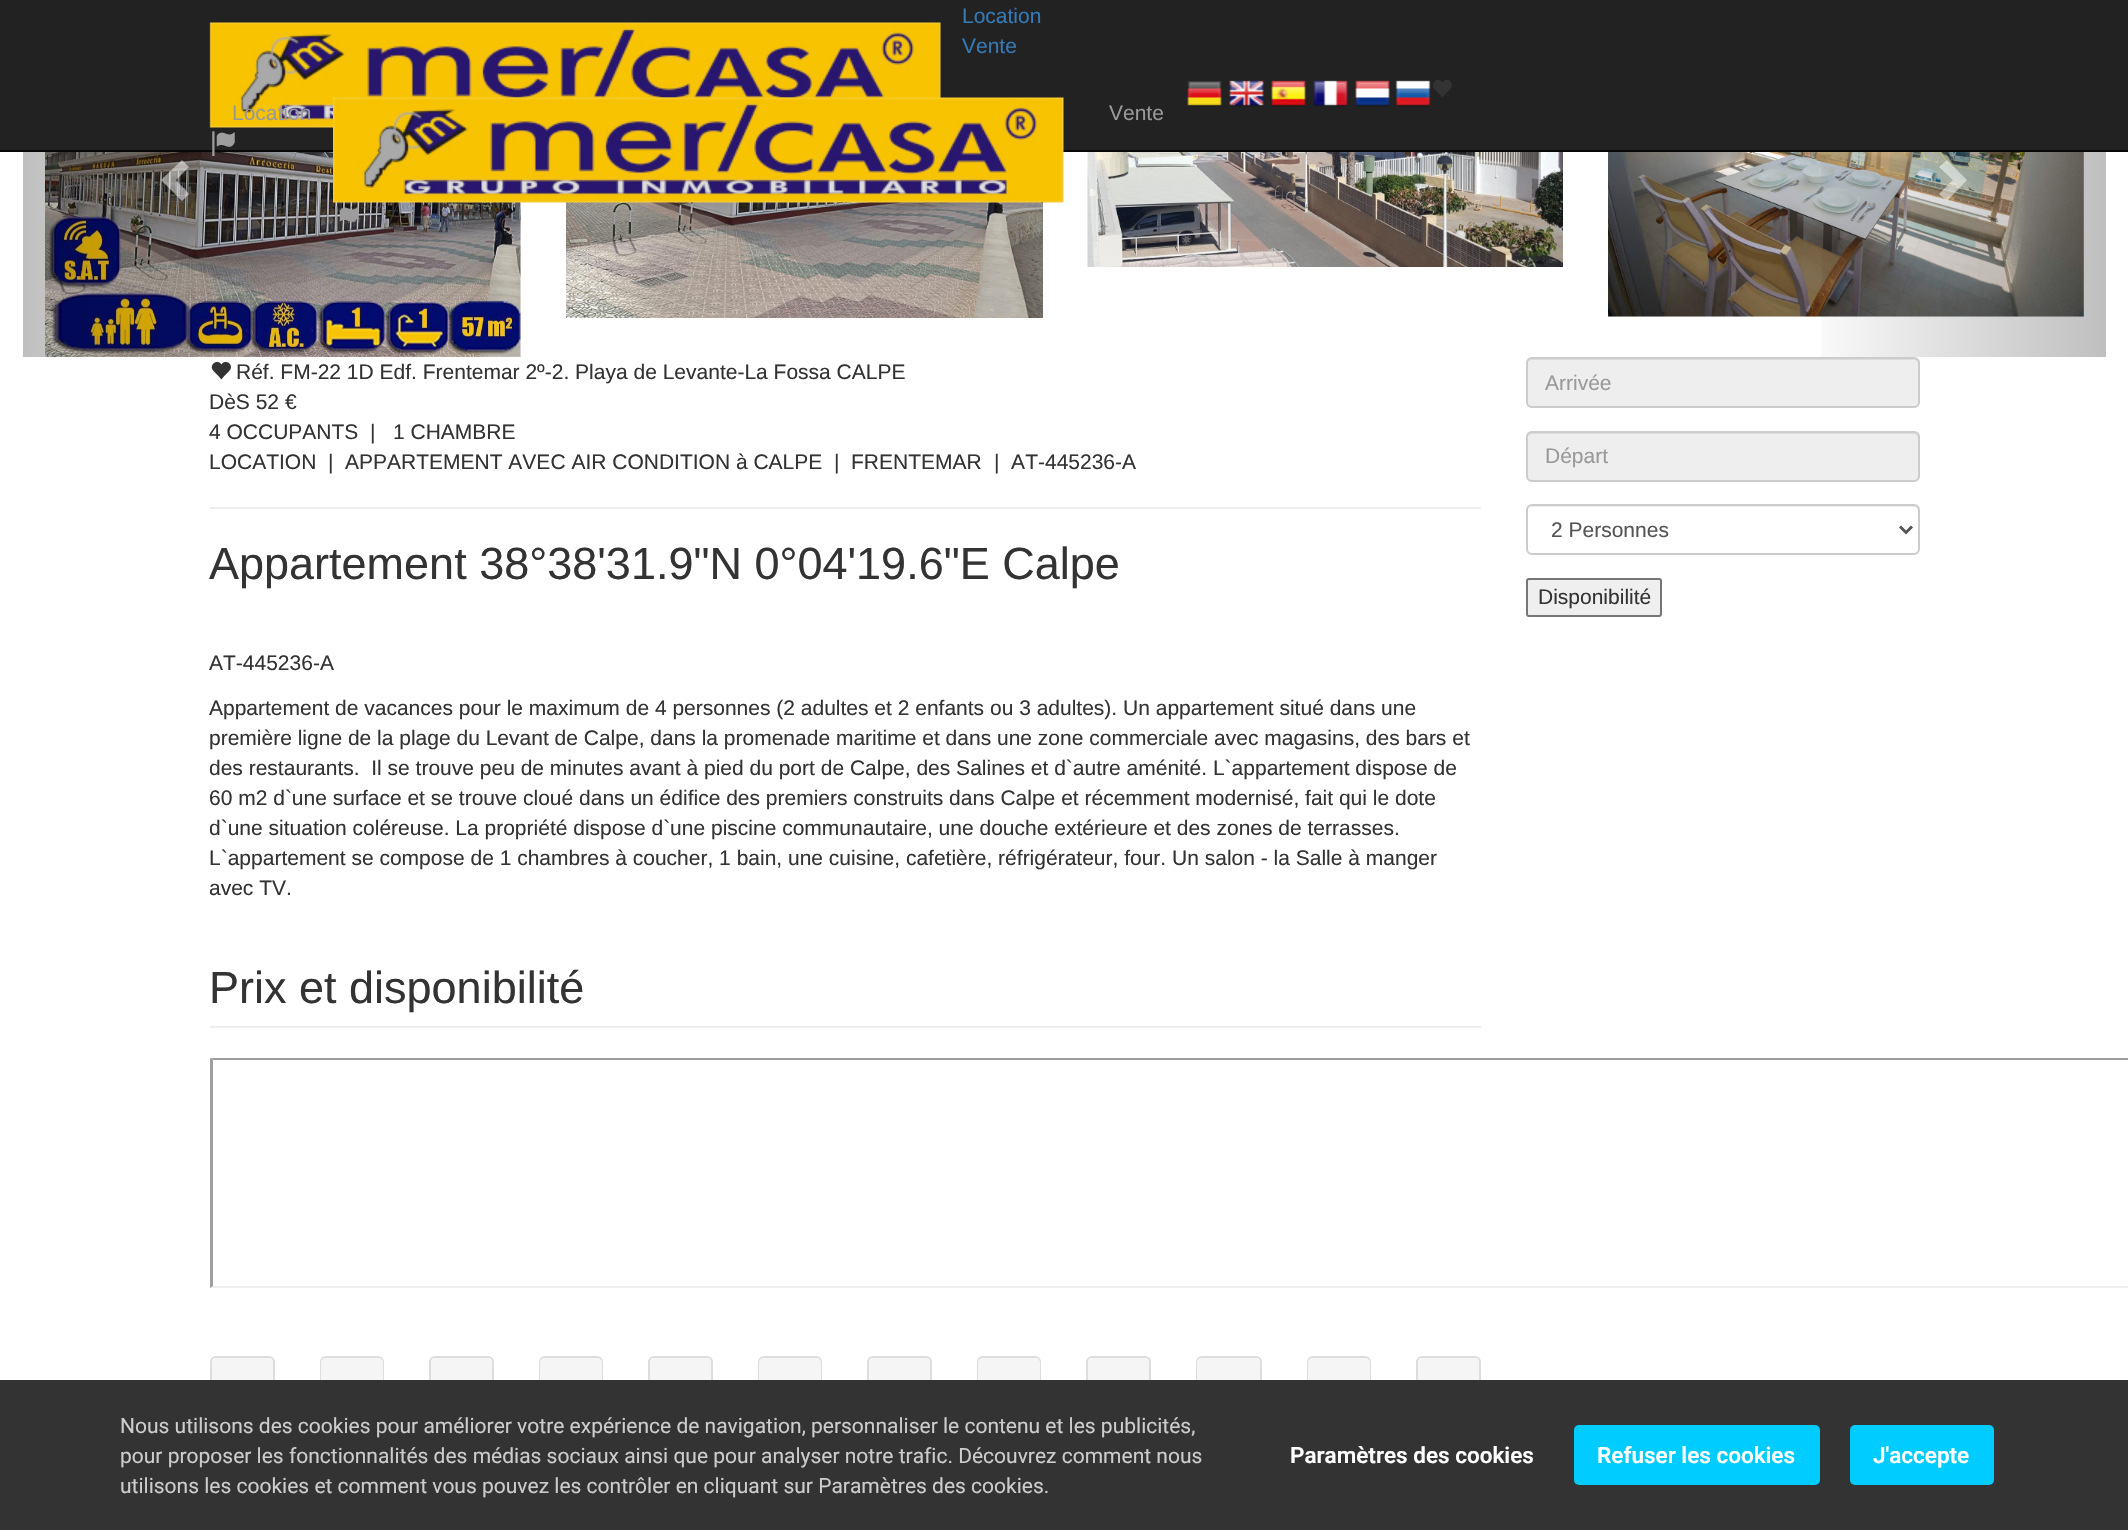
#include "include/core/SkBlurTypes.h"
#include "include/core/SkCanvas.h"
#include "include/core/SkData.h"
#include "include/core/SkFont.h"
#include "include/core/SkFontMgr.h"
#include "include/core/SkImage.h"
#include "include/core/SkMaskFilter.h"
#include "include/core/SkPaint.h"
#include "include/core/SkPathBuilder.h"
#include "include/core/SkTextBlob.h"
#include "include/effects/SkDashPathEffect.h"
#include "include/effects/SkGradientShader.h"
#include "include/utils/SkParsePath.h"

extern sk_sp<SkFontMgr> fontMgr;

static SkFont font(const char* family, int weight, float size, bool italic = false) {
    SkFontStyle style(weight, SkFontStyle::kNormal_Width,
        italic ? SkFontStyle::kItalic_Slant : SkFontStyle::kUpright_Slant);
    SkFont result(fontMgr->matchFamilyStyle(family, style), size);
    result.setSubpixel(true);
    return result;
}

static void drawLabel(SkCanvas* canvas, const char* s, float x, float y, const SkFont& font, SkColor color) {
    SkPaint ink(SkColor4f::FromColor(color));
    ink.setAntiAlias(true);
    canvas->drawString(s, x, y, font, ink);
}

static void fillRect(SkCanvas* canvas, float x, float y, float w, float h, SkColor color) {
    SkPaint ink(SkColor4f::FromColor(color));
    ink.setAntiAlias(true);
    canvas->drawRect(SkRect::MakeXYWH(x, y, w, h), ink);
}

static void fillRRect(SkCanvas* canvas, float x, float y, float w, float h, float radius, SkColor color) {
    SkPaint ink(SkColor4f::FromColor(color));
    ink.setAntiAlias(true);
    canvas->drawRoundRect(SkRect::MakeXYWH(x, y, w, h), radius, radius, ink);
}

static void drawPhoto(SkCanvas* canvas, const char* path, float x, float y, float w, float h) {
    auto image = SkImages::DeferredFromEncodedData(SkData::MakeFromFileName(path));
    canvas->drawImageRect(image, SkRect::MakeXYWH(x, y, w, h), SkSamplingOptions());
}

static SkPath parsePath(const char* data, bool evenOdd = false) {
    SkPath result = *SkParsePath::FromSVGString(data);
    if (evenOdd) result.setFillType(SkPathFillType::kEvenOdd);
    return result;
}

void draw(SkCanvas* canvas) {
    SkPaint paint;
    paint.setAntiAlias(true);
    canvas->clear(0xFFFFFFFF);
    fillRect(canvas, 0, 0, 2128, 150, 0xFF222222);
    fillRect(canvas, 0, 150, 2128, 2, 0xFF080808);
    drawPhoto(canvas, "assets/img1.png", 209, 22, 732, 106);
    drawPhoto(canvas, "assets/img12.png", 45, 152, 476, 205);
    {
        const SkColor colors[] = {0x40000000, 0x00000000};
        const float stops[] = {0, 1};
        const SkPoint ends[] = {{22, 179}, {335, 179}};
        paint.setShader(SkGradientShader::MakeLinear(ends, colors, stops, 2, SkTileMode::kClamp));
        paint.setAlpha(255);
    }
    canvas->drawRect(SkRect::MakeXYWH(23, 152, 285, 205), paint);
    drawPhoto(canvas, "assets/img2.png", 212, 131, 23, 25);
    SkFont font1 = font("Liberation Sans", 400, 21);
    drawLabel(canvas, "Location", 962, 23, font1, 0xFF337AB7);
    drawLabel(canvas, "Vente", 962, 53, font1, 0xFF337AB7);
    drawPhoto(canvas, "assets/img3.png", 1187, 81, 35, 26);
    drawPhoto(canvas, "assets/img4.png", 1229, 80, 35, 27);
    drawPhoto(canvas, "assets/img5.png", 1271, 80, 35, 27);
    drawPhoto(canvas, "assets/img6.png", 1313, 80, 35, 27);
    drawPhoto(canvas, "assets/img7.png", 1355, 80, 35, 27);
    drawPhoto(canvas, "assets/img8.png", 1395, 80, 36, 27);
    drawPhoto(canvas, "assets/img9.png", 1433, 80, 19, 17);
    drawLabel(canvas, "Location", 232, 120, font1, 0xFF999999);
    drawPhoto(canvas, "assets/img13.png", 566, 202, 477, 116);
    drawPhoto(canvas, "assets/img10.png", 333, 97, 731, 106);
    drawPhoto(canvas, "assets/img11.png", 335, 206, 23, 25);
    drawLabel(canvas, "Vente", 1109, 120, font1, 0xFF999999);
    paint.setShader(nullptr);
    paint.setColor(0x80FFFFFF);
    canvas->drawPath(parsePath("M189 167L176 180L189 194L182 201L161 180L182 160Z"), paint);
    drawPhoto(canvas, "assets/img14.png", 1087, 152, 476, 115);
    drawPhoto(canvas, "assets/img15.png", 1608, 152, 476, 165);
    {
        const SkColor colors[] = {0x00000000, 0x40000000};
        const float stops[] = {0, 1};
        const SkPoint ends[] = {{1794, 179}, {2106, 179}};
        paint.setShader(SkGradientShader::MakeLinear(ends, colors, stops, 2, SkTileMode::kClamp));
        paint.setAlpha(255);
    }
    canvas->drawRect(SkRect::MakeXYWH(1821, 152, 285, 205), paint);
    paint.setShader(nullptr);
    paint.setColor(0x80FFFFFF);
    canvas->drawPath(parsePath("M1967 180L1947 201L1939 194L1953 180L1939 167L1947 160Z"), paint);
    drawPhoto(canvas, "assets/img16.png", 211, 361, 20, 19);
    drawLabel(canvas, "Réf. FM-22 1D Edf. Frentemar 2º-2. Playa de Levante-La Fossa CALPE", 236, 379, font1, 0xFF333333);
    drawLabel(canvas, "DèS 52 €", 209, 409, font1, 0xFF333333);
    drawLabel(canvas, "4 OCCUPANTS", 209, 439, font1, 0xFF333333);
    drawLabel(canvas, "|", 370, 439, font1, 0xFF333333);
    drawLabel(canvas, "1 CHAMBRE", 393, 439, font1, 0xFF333333);
    drawLabel(canvas, "LOCATION  |", 209, 469, font1, 0xFF333333);
    drawLabel(canvas, "APPARTEMENT AVEC AIR CONDITION à CALPE", 345, 469, font1, 0xFF333333);
    drawLabel(canvas, "|", 834, 469, font1, 0xFF333333);
    drawLabel(canvas, "FRENTEMAR", 851, 469, font1, 0xFF333333);
    drawLabel(canvas, "|  AT-445236-A", 994, 469, font1, 0xFF333333);
    fillRect(canvas, 210, 507, 1271, 2, 0xFFEEEEEE);
    SkFont font2 = font("Liberation Sans", 400, 45);
    drawLabel(canvas, "Appartement 38°38'31.9\"N 0°04'19.6\"E Calpe", 209, 579, font2, 0xFF333333);
    drawLabel(canvas, "AT-445236-A", 209, 670, font1, 0xFF333333);
    drawLabel(canvas, "Appartement de vacances pour le maximum de 4 personnes (2 adultes et 2 enfants ou 3 adultes). Un appartement situé dans une", 209, 715, font1, 0xFF333333);
    drawLabel(canvas, "première ligne de la plage du Levant de Calpe, dans la promenade maritime et dans une zone commerciale avec magasins, des bars et", 209, 745, font1, 0xFF333333);
    drawLabel(canvas, "des restaurants.  Il se trouve peu de minutes avant à pied du port de Calpe, des Salines et d`autre aménité. L`appartement dispose de", 209, 775, font1, 0xFF333333);
    drawLabel(canvas, "60 m2 d`une surface et se trouve cloué dans un édifice des premiers construits dans Calpe et récemment modernisé, fait qui le dote", 209, 805, font1, 0xFF333333);
    drawLabel(canvas, "d`une situation coléreuse. La propriété dispose d`une piscine communautaire, une douche extérieure et des zones de terrasses.", 209, 835, font1, 0xFF333333);
    drawLabel(canvas, "L`appartement se compose de 1 chambres à coucher, 1 bain, une cuisine, cafetière, réfrigérateur, four. Un salon - la Salle à manger", 209, 865, font1, 0xFF333333);
    drawLabel(canvas, "avec TV.", 209, 895, font1, 0xFF333333);
    fillRect(canvas, 210, 1026, 1271, 2, 0xFFEEEEEE);
    drawLabel(canvas, "Prix et disponibilité", 209, 1003, font2, 0xFF333333);
    paint.setColor(0xFF9F9F9F);
    canvas->drawPath(parsePath("M210 1058H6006L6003 1060H213Z"), paint);
    paint.setColor(0xFFEEEEEE);
    canvas->drawPath(parsePath("M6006 1288H210L213 1286H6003Z"), paint);
    paint.setColor(0xFF9F9F9F);
    canvas->drawPath(parsePath("M210 1288V1058L213 1060V1286Z"), paint);
    paint.setStroke(true);
    paint.setStrokeWidth(2);
    paint.setColor(0xFFDDDDDD);
    canvas->drawRoundRect(SkRect::MakeXYWH(211, 1357, 63, 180), 5, 5, paint);
    paint.setStroke(false);
    paint.setColor(0xFFF5F5F5);
    canvas->drawPath(parsePath("M217 1358H268C271 1358 273 1360 273 1363V1449H212V1363C212 1360 214 1358 217 1358Z"), paint);
    paint.setStroke(true);
    paint.setColor(0xFFDDDDDD);
    canvas->drawRoundRect(SkRect::MakeXYWH(321, 1357, 62, 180), 5, 5, paint);
    paint.setStroke(false);
    paint.setColor(0xFFF5F5F5);
    canvas->drawPath(parsePath("M326 1358H378C381 1358 383 1360 383 1363V1449H321V1363C321 1360 323 1358 326 1358Z"), paint);
    paint.setStroke(true);
    paint.setColor(0xFFDDDDDD);
    canvas->drawRoundRect(SkRect::MakeXYWH(430, 1357, 63, 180), 5, 5, paint);
    paint.setStroke(false);
    paint.setColor(0xFFF5F5F5);
    canvas->drawPath(parsePath("M436 1358H487C490 1358 492 1360 492 1363V1449H431V1363C431 1360 433 1358 436 1358Z"), paint);
    paint.setStroke(true);
    paint.setColor(0xFFDDDDDD);
    canvas->drawRoundRect(SkRect::MakeXYWH(540, 1357, 62, 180), 5, 5, paint);
    paint.setStroke(false);
    paint.setColor(0xFFF5F5F5);
    canvas->drawPath(parsePath("M545 1358H597C600 1358 602 1360 602 1363V1449H540V1363C540 1360 542 1358 545 1358Z"), paint);
    paint.setStroke(true);
    paint.setColor(0xFFDDDDDD);
    canvas->drawRoundRect(SkRect::MakeXYWH(649, 1357, 63, 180), 5, 5, paint);
    paint.setStroke(false);
    paint.setColor(0xFFF5F5F5);
    canvas->drawPath(parsePath("M655 1358H706C709 1358 711 1360 711 1363V1449H650V1363C650 1360 652 1358 655 1358Z"), paint);
    paint.setStroke(true);
    paint.setColor(0xFFDDDDDD);
    canvas->drawRoundRect(SkRect::MakeXYWH(759, 1357, 62, 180), 5, 5, paint);
    paint.setStroke(false);
    paint.setColor(0xFFF5F5F5);
    canvas->drawPath(parsePath("M764 1358H816C819 1358 821 1360 821 1363V1449H759V1363C759 1360 761 1358 764 1358Z"), paint);
    paint.setStroke(true);
    paint.setColor(0xFFDDDDDD);
    canvas->drawRoundRect(SkRect::MakeXYWH(868, 1357, 63, 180), 5, 5, paint);
    paint.setStroke(false);
    paint.setColor(0xFFF5F5F5);
    canvas->drawPath(parsePath("M874 1358H925C928 1358 930 1360 930 1363V1449H869V1363C869 1360 871 1358 874 1358Z"), paint);
    paint.setStroke(true);
    paint.setColor(0xFFDDDDDD);
    canvas->drawRoundRect(SkRect::MakeXYWH(978, 1357, 62, 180), 5, 5, paint);
    paint.setStroke(false);
    paint.setColor(0xFFF5F5F5);
    canvas->drawPath(parsePath("M983 1358H1035C1038 1358 1040 1360 1040 1363V1449H978V1363C978 1360 980 1358 983 1358Z"), paint);
    paint.setStroke(true);
    paint.setColor(0xFFDDDDDD);
    canvas->drawRoundRect(SkRect::MakeXYWH(1087, 1357, 63, 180), 5, 5, paint);
    paint.setStroke(false);
    paint.setColor(0xFFF5F5F5);
    canvas->drawPath(parsePath("M1093 1358H1144C1147 1358 1149 1360 1149 1363V1449H1088V1363C1088 1360 1090 1358 1093 1358Z"), paint);
    paint.setStroke(true);
    paint.setColor(0xFFDDDDDD);
    canvas->drawRoundRect(SkRect::MakeXYWH(1197, 1357, 64, 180), 5, 5, paint);
    paint.setStroke(false);
    paint.setColor(0xFFF5F5F5);
    canvas->drawPath(parsePath("M1202 1358H1255C1258 1358 1260 1360 1260 1363V1449H1197V1363C1197 1360 1199 1358 1202 1358Z"), paint);
    paint.setStroke(true);
    paint.setColor(0xFFDDDDDD);
    canvas->drawRoundRect(SkRect::MakeXYWH(1308, 1357, 62, 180), 5, 5, paint);
    paint.setStroke(false);
    paint.setColor(0xFFF5F5F5);
    canvas->drawPath(parsePath("M1313 1358H1365C1368 1358 1370 1360 1370 1363V1449H1308V1363C1308 1360 1310 1358 1313 1358Z"), paint);
    paint.setStroke(true);
    paint.setColor(0xFFDDDDDD);
    canvas->drawRoundRect(SkRect::MakeXYWH(1417, 1357, 63, 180), 5, 5, paint);
    paint.setStroke(false);
    paint.setColor(0xFFF5F5F5);
    canvas->drawPath(parsePath("M1423 1358H1474C1477 1358 1479 1360 1479 1363V1449H1418V1363C1418 1360 1420 1358 1423 1358Z"), paint);
    fillRRect(canvas, 1526, 357, 394, 51, 6, 0xFFEEEEEE);
    paint.setColor(0xFFDCDCDC);
    canvas->drawPath(parsePath("M1532 360H1914C1916 360 1918 362 1918 364V405C1919 404 1919 403 1919 402V364C1919 361 1917 359 1914 359H1532C1529 359 1527 361 1527 364C1527 362 1529 360 1532 360Z"), paint);
    paint.setStroke(true);
    paint.setColor(0xFFCCCCCC);
    canvas->drawRoundRect(SkRect::MakeXYWH(1527, 358, 392, 49), 5, 5, paint);
    drawLabel(canvas, "Arrivée", 1545, 390, font1, 0xFF999999);
    fillRRect(canvas, 1526, 431, 394, 51, 6, 0xFFEEEEEE);
    paint.setStroke(false);
    paint.setColor(0xFFDCDCDC);
    canvas->drawPath(parsePath("M1532 434H1914C1916 434 1918 436 1918 438V478C1919 477 1919 476 1919 475V437C1919 434 1917 432 1914 432H1532C1529 432 1527 434 1527 437V438C1527 436 1529 434 1532 434Z"), paint);
    paint.setStroke(true);
    paint.setColor(0xFFCCCCCC);
    canvas->drawRoundRect(SkRect::MakeXYWH(1527, 432, 392, 49), 5, 5, paint);
    drawLabel(canvas, "Départ", 1545, 463, font1, 0xFF999999);
    paint.setStroke(false);
    paint.setColor(0xFFECECEC);
    canvas->drawPath(parsePath("M1532 507H1914C1916 507 1918 509 1918 512V550L1917 553C1918 552 1919 550 1919 549V511C1919 508 1917 506 1914 506H1532C1529 506 1527 508 1527 511V512C1527 509 1529 507 1532 507Z"), paint);
    paint.setStroke(true);
    paint.setColor(0xFFCCCCCC);
    canvas->drawRoundRect(SkRect::MakeXYWH(1527, 505, 392, 49), 5, 5, paint);
    paint.setStrokeWidth(3);
    paint.setColor(0xFF555555);
    canvas->drawPath(parsePath("M1900 526.5L1906 532.5L1912 526.5"), paint);
    drawLabel(canvas, "2 Personnes", 1551, 537, font1, 0xFF555555);
    paint.setStroke(false);
    paint.setColor(0xFFEFEFEF);
    canvas->drawRoundRect(SkRect::MakeXYWH(1527, 579, 134, 37), 2, 2, paint);
    paint.setStroke(true);
    paint.setStrokeWidth(2);
    paint.setColor(0xFF767676);
    canvas->drawRoundRect(SkRect::MakeXYWH(1527, 579, 134, 37), 2, 2, paint);
    drawLabel(canvas, "Disponibilité", 1538, 604, font1, 0xFF333333);
    fillRect(canvas, 0, 1380, 2128, 150, 0xFF333333);
    SkFont font3 = font("Roboto", 400, 21);
    drawLabel(canvas, "Nous utilisons des cookies pour améliorer votre expérience de navigation, personnaliser le contenu et les publicités,", 120, 1433, font3, 0xFFCCCCCC);
    drawLabel(canvas, "pour proposer les fonctionnalités des médias sociaux ainsi que pour analyser notre trafic. Découvrez comment nous", 120, 1463, font3, 0xFFCCCCCC);
    drawLabel(canvas, "utilisons les cookies et comment vous pouvez les contrôler en cliquant sur Paramètres des cookies.", 120, 1493, font3, 0xFFCCCCCC);
    SkFont font4 = font("Roboto", 600, 22.5f);
    drawLabel(canvas, "Paramètres des cookies", 1290, 1463, font4, 0xFFFFFFFF);
    fillRRect(canvas, 1574, 1425, 246, 60, 5, 0xFF00CCFF);
    drawLabel(canvas, "Refuser les cookies", 1597, 1463, font4, 0xFFFFFFFF);
    fillRRect(canvas, 1850, 1425, 144, 60, 5, 0xFF00CCFF);
    drawLabel(canvas, "J'accepte", 1873, 1463, font4, 0xFFFFFFFF);
}
